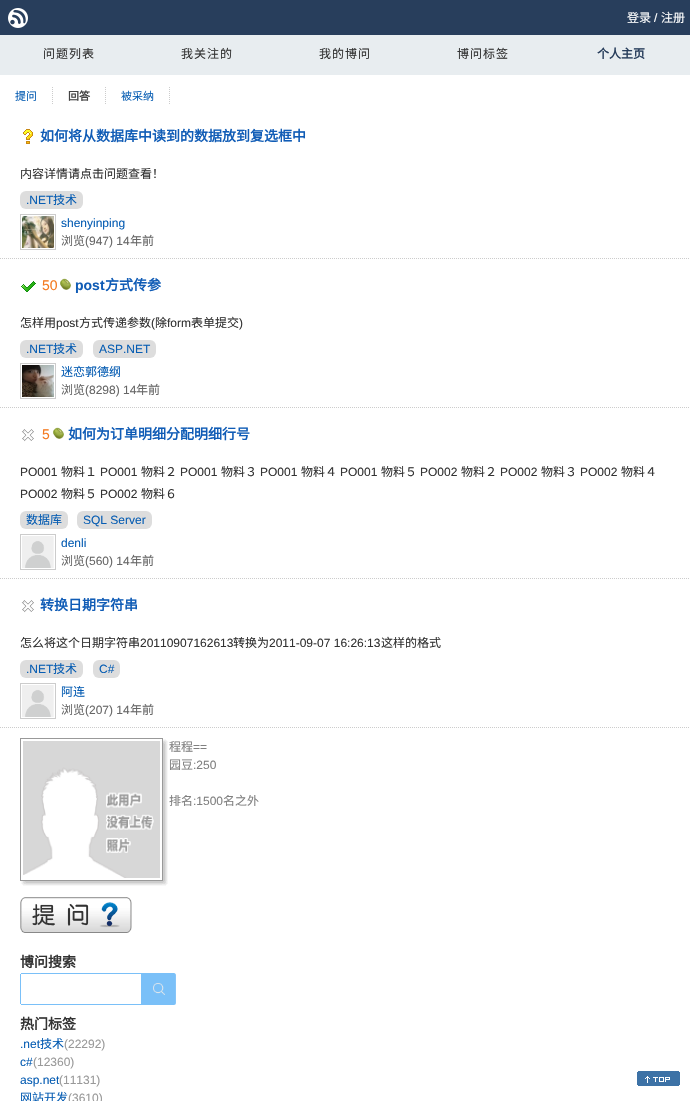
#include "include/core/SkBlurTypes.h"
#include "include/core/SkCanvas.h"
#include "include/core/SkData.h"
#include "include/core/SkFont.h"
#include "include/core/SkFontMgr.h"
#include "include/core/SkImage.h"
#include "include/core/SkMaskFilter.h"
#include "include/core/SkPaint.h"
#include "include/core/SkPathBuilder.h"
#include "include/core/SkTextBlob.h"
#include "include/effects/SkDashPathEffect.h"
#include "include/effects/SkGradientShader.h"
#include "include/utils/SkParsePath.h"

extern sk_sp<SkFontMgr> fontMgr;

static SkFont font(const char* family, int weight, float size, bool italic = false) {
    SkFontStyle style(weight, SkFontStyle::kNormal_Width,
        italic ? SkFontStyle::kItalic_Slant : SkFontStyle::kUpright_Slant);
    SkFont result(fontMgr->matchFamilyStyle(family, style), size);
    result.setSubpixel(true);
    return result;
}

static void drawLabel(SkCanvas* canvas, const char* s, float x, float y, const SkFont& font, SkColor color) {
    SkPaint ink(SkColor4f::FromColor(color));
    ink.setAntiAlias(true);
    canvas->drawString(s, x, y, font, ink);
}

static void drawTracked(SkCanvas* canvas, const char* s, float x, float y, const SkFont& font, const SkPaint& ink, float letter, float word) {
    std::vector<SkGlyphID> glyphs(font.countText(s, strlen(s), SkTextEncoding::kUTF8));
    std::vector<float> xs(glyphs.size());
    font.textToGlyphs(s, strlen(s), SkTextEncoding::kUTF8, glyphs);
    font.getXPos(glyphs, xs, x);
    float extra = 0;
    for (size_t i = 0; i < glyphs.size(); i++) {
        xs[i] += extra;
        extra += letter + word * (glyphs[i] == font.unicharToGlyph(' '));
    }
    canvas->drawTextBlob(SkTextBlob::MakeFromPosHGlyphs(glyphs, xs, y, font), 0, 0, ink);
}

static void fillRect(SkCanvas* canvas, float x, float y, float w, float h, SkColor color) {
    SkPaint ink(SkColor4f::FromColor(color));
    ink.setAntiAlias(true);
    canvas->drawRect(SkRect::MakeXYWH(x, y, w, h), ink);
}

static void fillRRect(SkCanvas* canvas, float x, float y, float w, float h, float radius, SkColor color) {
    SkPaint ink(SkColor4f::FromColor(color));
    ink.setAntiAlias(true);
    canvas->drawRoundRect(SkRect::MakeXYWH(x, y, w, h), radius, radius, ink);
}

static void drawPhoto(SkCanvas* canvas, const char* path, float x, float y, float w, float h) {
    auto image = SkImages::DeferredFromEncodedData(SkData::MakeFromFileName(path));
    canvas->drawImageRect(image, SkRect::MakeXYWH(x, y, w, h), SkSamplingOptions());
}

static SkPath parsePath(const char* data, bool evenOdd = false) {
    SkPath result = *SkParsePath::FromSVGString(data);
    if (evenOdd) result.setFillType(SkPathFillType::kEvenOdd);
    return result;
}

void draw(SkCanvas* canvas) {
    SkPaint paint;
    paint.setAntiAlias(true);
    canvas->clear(0xFFFFFFFF);
    fillRect(canvas, 0, 0, 690, 35, 0xFF283E5C);
    drawPhoto(canvas, "assets/img1.png", 8, 8, 20, 20);
    SkFont font1 = font("Noto Sans CJK SC", 400, 12);
    drawLabel(canvas, "登录", 627, 22, font1, 0xFFFFFFFF);
    SkFont font2 = font("Liberation Sans", 400, 12);
    drawLabel(canvas, "/", 654, 22, font2, 0xFFFFFFFF);
    drawLabel(canvas, "注册", 661, 22, font1, 0xFFFFFFFF);
    fillRect(canvas, 0, 35, 690, 40, 0xFFE8EDF0);
    paint.setColor(0xFF333333);
    drawTracked(canvas, "问题列表", 43, 58, font1, paint, 1, 0);
    drawTracked(canvas, "我关注的", 181, 58, font1, paint, 1, 0);
    drawTracked(canvas, "我的博问", 319, 58, font1, paint, 1, 0);
    drawTracked(canvas, "博问标签", 457, 58, font1, paint, 1, 0);
    SkFont font3 = font("Noto Sans CJK SC", 700, 12);
    drawLabel(canvas, "个人主页", 597, 58, font3, 0xFF283E5C);
    SkFont font4 = font("Noto Sans CJK SC", 400, 11);
    drawLabel(canvas, "提问", 15, 100, font4, 0xFF075DB3);
    paint.setStroke(true);
    paint.setStrokeWidth(1);
    paint.setColor(0xFFCCCCCC);
    paint.setPathEffect(SkDashPathEffect::Make({{1, 1}}, 0));
    canvas->drawPath(parsePath("M52.5 87V105"), paint);
    paint.setPathEffect(nullptr);
    SkFont font5 = font("Noto Sans CJK SC", 700, 11);
    drawLabel(canvas, "回答", 68, 100, font5, 0xFF444444);
    paint.setPathEffect(SkDashPathEffect::Make({{1, 1}}, 0));
    canvas->drawPath(parsePath("M105.5 87V105"), paint);
    paint.setPathEffect(nullptr);
    drawLabel(canvas, "被采纳", 121, 100, font4, 0xFF075DB3);
    paint.setPathEffect(SkDashPathEffect::Make({{1, 1}}, 0));
    canvas->drawPath(parsePath("M169.5 87V105"), paint);
    paint.setPathEffect(nullptr);
    paint.setPathEffect(SkDashPathEffect::Make({{1, 1}}, 0));
    canvas->drawPath(parsePath("M0 258.5H690"), paint);
    paint.setPathEffect(nullptr);
    drawPhoto(canvas, "assets/img2.png", 23, 129, 10, 15);
    SkFont font6 = font("Noto Sans CJK SC", 700, 14);
    drawLabel(canvas, "如何将从数据库中读到的数据放到复选框中", 40, 141, font6, 0xFF105CB6);
    drawLabel(canvas, "内容详情请点击问题查看！", 20, 178, font1, 0xFF333333);
    fillRRect(canvas, 20, 191, 63, 18, 6, 0xFFDDDDDD);
    drawLabel(canvas, ".NET", 26, 204, font2, 0xFF075DB3);
    drawLabel(canvas, "技术", 53, 204, font1, 0xFF075DB3);
    canvas->drawRect(SkRect::MakeXYWH(20.5f, 214.5f, 35, 35), paint);
    drawPhoto(canvas, "assets/img3.png", 22, 216, 32, 32);
    drawLabel(canvas, "shenyinping", 61, 227, font2, 0xFF075DB3);
    drawLabel(canvas, "浏览", 61, 245, font1, 0xFF666666);
    drawLabel(canvas, "(947) 14", 85, 245, font2, 0xFF666666);
    drawLabel(canvas, "年前", 130, 245, font1, 0xFF666666);
    paint.setPathEffect(SkDashPathEffect::Make({{1, 1}}, 0));
    canvas->drawPath(parsePath("M0 407.5H690"), paint);
    paint.setPathEffect(nullptr);
    drawPhoto(canvas, "assets/img4.png", 21, 281, 15, 11);
    SkFont font7 = font("Liberation Sans", 400, 14);
    drawLabel(canvas, "50", 42, 290, font7, 0xFFF47A20);
    drawPhoto(canvas, "assets/img5.png", 60, 278, 11, 12);
    SkFont font8 = font("Liberation Sans", 700, 14);
    drawLabel(canvas, "post", 75, 290, font8, 0xFF105CB6);
    drawLabel(canvas, "方式传参", 105, 290, font6, 0xFF105CB6);
    drawLabel(canvas, "怎样用", 20, 327, font1, 0xFF333333);
    drawLabel(canvas, "post", 56, 327, font2, 0xFF333333);
    drawLabel(canvas, "方式传递参数", 79, 327, font1, 0xFF333333);
    drawLabel(canvas, "(", 151, 327, font2, 0xFF333333);
    drawLabel(canvas, "除", 155, 327, font1, 0xFF333333);
    drawLabel(canvas, "form", 167, 327, font2, 0xFF333333);
    drawLabel(canvas, "表单提交", 191, 327, font1, 0xFF333333);
    drawLabel(canvas, ")", 239, 327, font2, 0xFF333333);
    fillRRect(canvas, 20, 340, 63, 18, 6, 0xFFDDDDDD);
    drawLabel(canvas, ".NET", 26, 353, font2, 0xFF075DB3);
    drawLabel(canvas, "技术", 53, 353, font1, 0xFF075DB3);
    fillRRect(canvas, 93, 340, 63, 18, 6, 0xFFDDDDDD);
    drawLabel(canvas, "ASP.NET", 99, 353, font2, 0xFF075DB3);
    canvas->drawRect(SkRect::MakeXYWH(20.5f, 363.5f, 35, 35), paint);
    drawPhoto(canvas, "assets/img6.png", 22, 365, 32, 32);
    drawLabel(canvas, "迷恋郭德纲", 61, 376, font1, 0xFF075DB3);
    drawLabel(canvas, "浏览", 61, 394, font1, 0xFF666666);
    drawLabel(canvas, "(8298) 14", 85, 394, font2, 0xFF666666);
    drawLabel(canvas, "年前", 136, 394, font1, 0xFF666666);
    paint.setPathEffect(SkDashPathEffect::Make({{1, 1}}, 0));
    canvas->drawPath(parsePath("M0 578.5H690"), paint);
    paint.setPathEffect(nullptr);
    drawPhoto(canvas, "assets/img7.png", 21, 429, 13, 13);
    drawLabel(canvas, "5", 42, 439, font7, 0xFFF47A20);
    drawPhoto(canvas, "assets/img5.png", 53, 427, 11, 12);
    drawLabel(canvas, "如何为订单明细分配明细行号", 68, 439, font6, 0xFF105CB6);
    drawLabel(canvas, "PO001", 20, 476, font2, 0xFF333333);
    drawLabel(canvas, "物料１", 61, 476, font1, 0xFF333333);
    drawLabel(canvas, "PO001", 100, 476, font2, 0xFF333333);
    drawLabel(canvas, "物料２", 141, 476, font1, 0xFF333333);
    drawLabel(canvas, "PO001", 180, 476, font2, 0xFF333333);
    drawLabel(canvas, "物料３", 221, 476, font1, 0xFF333333);
    drawLabel(canvas, "PO001", 260, 476, font2, 0xFF333333);
    drawLabel(canvas, "物料４", 301, 476, font1, 0xFF333333);
    drawLabel(canvas, "PO001", 340, 476, font2, 0xFF333333);
    drawLabel(canvas, "物料５", 381, 476, font1, 0xFF333333);
    drawLabel(canvas, "PO002", 420, 476, font2, 0xFF333333);
    drawLabel(canvas, "物料２", 461, 476, font1, 0xFF333333);
    drawLabel(canvas, "PO002", 500, 476, font2, 0xFF333333);
    drawLabel(canvas, "物料３", 541, 476, font1, 0xFF333333);
    drawLabel(canvas, "PO002", 580, 476, font2, 0xFF333333);
    drawLabel(canvas, "物料４", 621, 476, font1, 0xFF333333);
    drawLabel(canvas, "PO002", 20, 498, font2, 0xFF333333);
    drawLabel(canvas, "物料５", 61, 498, font1, 0xFF333333);
    drawLabel(canvas, "PO002", 100, 498, font2, 0xFF333333);
    drawLabel(canvas, "物料６", 141, 498, font1, 0xFF333333);
    fillRRect(canvas, 20, 511, 48, 18, 6, 0xFFDDDDDD);
    drawLabel(canvas, "数据库", 26, 524, font1, 0xFF075DB3);
    fillRRect(canvas, 77, 511, 75, 18, 6, 0xFFDDDDDD);
    drawLabel(canvas, "SQL Server", 83, 524, font2, 0xFF075DB3);
    canvas->drawRect(SkRect::MakeXYWH(20.5f, 534.5f, 35, 35), paint);
    drawPhoto(canvas, "assets/img8.png", 22, 536, 32, 32);
    drawLabel(canvas, "denli", 61, 547, font2, 0xFF075DB3);
    drawLabel(canvas, "浏览", 61, 565, font1, 0xFF666666);
    drawLabel(canvas, "(560) 14", 85, 565, font2, 0xFF666666);
    drawLabel(canvas, "年前", 130, 565, font1, 0xFF666666);
    paint.setPathEffect(SkDashPathEffect::Make({{1, 1}}, 0));
    canvas->drawPath(parsePath("M0 727.5H690"), paint);
    paint.setPathEffect(nullptr);
    drawPhoto(canvas, "assets/img7.png", 21, 600, 13, 13);
    drawLabel(canvas, "转换日期字符串", 40, 610, font6, 0xFF105CB6);
    drawLabel(canvas, "怎么将这个日期字符串", 20, 647, font1, 0xFF333333);
    drawLabel(canvas, "20110907162613", 140, 647, font2, 0xFF333333);
    drawLabel(canvas, "转换为", 233, 647, font1, 0xFF333333);
    drawLabel(canvas, "2011-09-07 16:26:13", 269, 647, font2, 0xFF333333);
    drawLabel(canvas, "这样的格式", 381, 647, font1, 0xFF333333);
    fillRRect(canvas, 20, 660, 63, 18, 6, 0xFFDDDDDD);
    drawLabel(canvas, ".NET", 26, 673, font2, 0xFF075DB3);
    drawLabel(canvas, "技术", 53, 673, font1, 0xFF075DB3);
    fillRRect(canvas, 93, 660, 27, 18, 6, 0xFFDDDDDD);
    drawLabel(canvas, "C#", 99, 673, font2, 0xFF075DB3);
    canvas->drawRect(SkRect::MakeXYWH(20.5f, 683.5f, 35, 35), paint);
    drawPhoto(canvas, "assets/img8.png", 22, 685, 32, 32);
    drawLabel(canvas, "阿连", 61, 696, font1, 0xFF075DB3);
    drawLabel(canvas, "浏览", 61, 714, font1, 0xFF666666);
    drawLabel(canvas, "(207) 14", 85, 714, font2, 0xFF666666);
    drawLabel(canvas, "年前", 130, 714, font1, 0xFF666666);
    drawPhoto(canvas, "assets/img9.png", 21, 739, 147, 147);
    drawPhoto(canvas, "assets/img10.png", 163, 738, 5, 6);
    drawPhoto(canvas, "assets/img11.png", 20, 881, 6, 5);
    paint.setColor(0xFF999999);
    canvas->drawRect(SkRect::MakeXYWH(20.5f, 738.5f, 142, 142), paint);
    drawPhoto(canvas, "assets/img12.png", 23, 741, 137, 137);
    drawLabel(canvas, "程程", 169, 751, font1, 0xFF808080);
    drawLabel(canvas, "==", 193, 751, font2, 0xFF808080);
    drawLabel(canvas, "园豆", 169, 769, font1, 0xFF808080);
    drawLabel(canvas, ":250", 193, 769, font2, 0xFF808080);
    drawLabel(canvas, "排名", 169, 805, font1, 0xFF808080);
    drawLabel(canvas, ":1500", 193, 805, font2, 0xFF808080);
    drawLabel(canvas, "名之外", 223, 805, font1, 0xFF808080);
    drawPhoto(canvas, "assets/img13.png", 20, 897, 112, 36);
    drawLabel(canvas, "博问搜索", 20, 967, font6, 0xFF333333);
    fillRect(canvas, 21, 973, 120, 1, 0xFF7AC0F8);
    fillRect(canvas, 21, 1004, 120, 1, 0xFF7AC0F8);
    fillRect(canvas, 20, 974, 1, 30, 0xFF7AC0F8);
    paint.setStroke(false);
    paint.setColor(0xFF7AC0F8);
    canvas->drawPath(parsePath("M141 973H174C175 973 176 974 176 975V1003C176 1004 175 1005 174 1005H141Z"), paint);
    drawPhoto(canvas, "assets/img14.png", 153, 983, 12, 12);
    fillRect(canvas, 175, 974, 1, 30, 0x1AECF6FF);
    drawLabel(canvas, "热门标签", 20, 1029, font6, 0xFF333333);
    drawLabel(canvas, ".net", 20, 1048, font2, 0xFF075DB3);
    drawLabel(canvas, "技术", 40, 1048, font1, 0xFF075DB3);
    drawLabel(canvas, "(22292)", 64, 1048, font2, 0xFF999999);
    drawLabel(canvas, "c#", 20, 1066, font2, 0xFF075DB3);
    drawLabel(canvas, "(12360)", 33, 1066, font2, 0xFF999999);
    drawLabel(canvas, "asp.net", 20, 1084, font2, 0xFF075DB3);
    drawLabel(canvas, "(11131)", 59, 1084, font2, 0xFF999999);
    drawLabel(canvas, "网站开发", 20, 1102, font1, 0xFF075DB3);
    drawLabel(canvas, "(3610)", 68, 1102, font2, 0xFF999999);
    drawPhoto(canvas, "assets/img15.png", 637, 1071, 43, 15);
}
